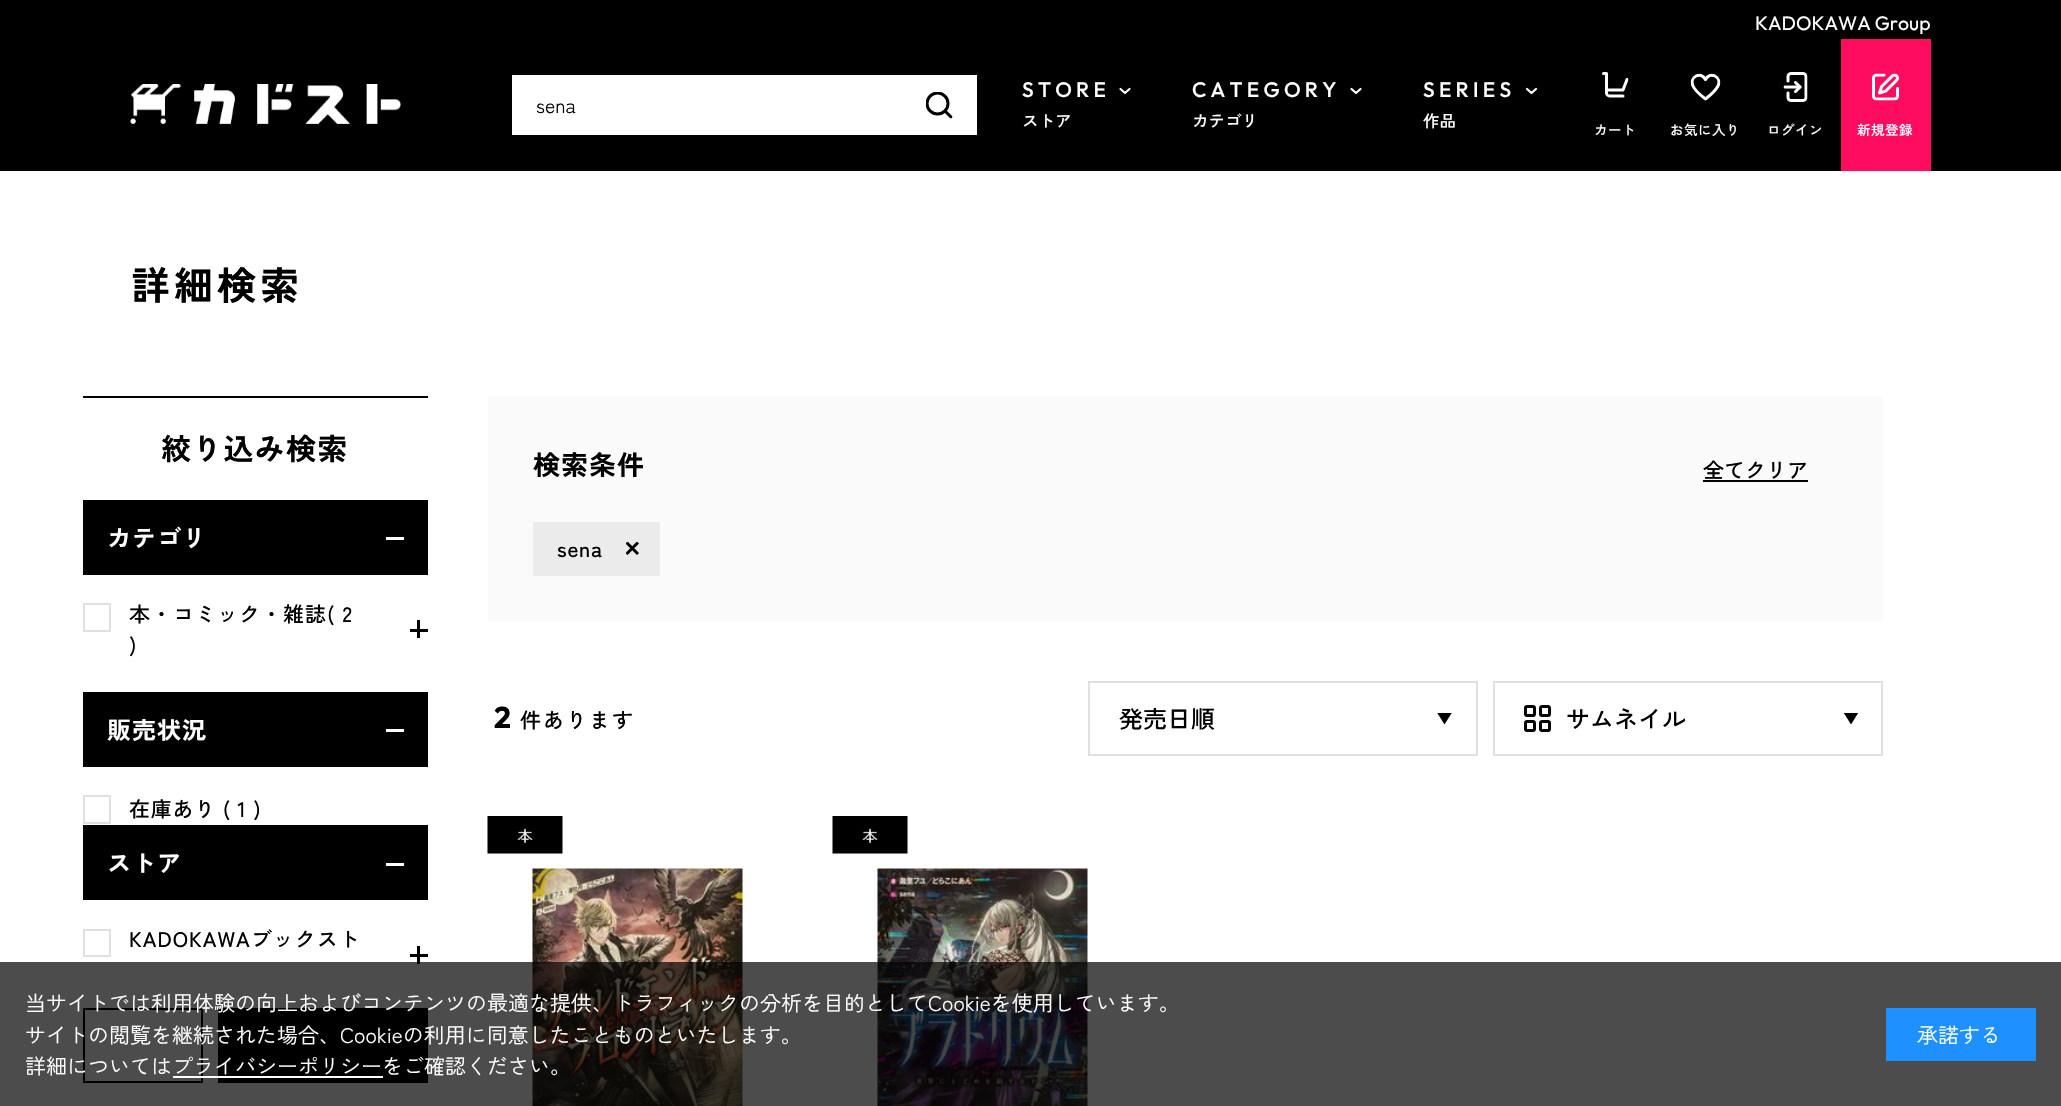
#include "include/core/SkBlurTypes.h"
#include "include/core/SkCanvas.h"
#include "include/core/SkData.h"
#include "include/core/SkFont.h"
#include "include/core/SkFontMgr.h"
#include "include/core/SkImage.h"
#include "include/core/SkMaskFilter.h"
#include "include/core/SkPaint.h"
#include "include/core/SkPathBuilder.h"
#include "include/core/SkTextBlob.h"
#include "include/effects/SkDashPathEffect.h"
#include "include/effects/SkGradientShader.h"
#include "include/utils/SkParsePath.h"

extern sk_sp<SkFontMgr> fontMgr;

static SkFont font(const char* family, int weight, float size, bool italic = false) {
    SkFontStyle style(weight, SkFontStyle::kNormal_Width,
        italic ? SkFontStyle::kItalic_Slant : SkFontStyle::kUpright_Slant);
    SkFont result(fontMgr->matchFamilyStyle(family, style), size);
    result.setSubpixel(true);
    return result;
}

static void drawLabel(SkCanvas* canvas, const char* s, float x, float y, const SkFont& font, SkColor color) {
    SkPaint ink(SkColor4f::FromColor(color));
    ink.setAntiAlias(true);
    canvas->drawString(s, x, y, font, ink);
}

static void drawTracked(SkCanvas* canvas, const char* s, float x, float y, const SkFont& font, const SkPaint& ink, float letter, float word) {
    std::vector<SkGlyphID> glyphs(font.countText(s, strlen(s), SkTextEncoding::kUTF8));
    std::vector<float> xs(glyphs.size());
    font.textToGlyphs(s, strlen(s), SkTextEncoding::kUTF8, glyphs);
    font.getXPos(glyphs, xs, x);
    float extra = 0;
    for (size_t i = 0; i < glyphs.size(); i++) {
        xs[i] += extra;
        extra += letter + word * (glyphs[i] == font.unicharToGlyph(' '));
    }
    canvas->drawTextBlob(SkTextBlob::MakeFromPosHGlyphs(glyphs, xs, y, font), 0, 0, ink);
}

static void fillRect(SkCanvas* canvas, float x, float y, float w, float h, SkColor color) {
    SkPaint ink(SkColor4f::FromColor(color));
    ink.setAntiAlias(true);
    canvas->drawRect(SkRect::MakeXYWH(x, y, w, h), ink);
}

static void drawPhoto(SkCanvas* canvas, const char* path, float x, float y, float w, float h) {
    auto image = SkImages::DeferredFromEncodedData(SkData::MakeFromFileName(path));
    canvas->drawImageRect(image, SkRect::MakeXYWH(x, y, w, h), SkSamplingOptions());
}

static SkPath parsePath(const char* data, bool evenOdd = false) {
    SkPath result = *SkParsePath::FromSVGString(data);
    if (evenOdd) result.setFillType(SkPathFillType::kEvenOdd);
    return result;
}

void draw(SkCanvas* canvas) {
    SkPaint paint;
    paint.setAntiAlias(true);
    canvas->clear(0xFFFFFFFF);
    fillRect(canvas, 0, 0, 2061, 171, 0xFF000000);
    SkFont font1 = font("Outfit", 400, 19.5f);
    drawLabel(canvas, "KADOKAWA Group", 1755, 30, font1, 0xFFFFFFFF);
    drawPhoto(canvas, "assets/img1.png", 130, 84, 271, 40);
    fillRect(canvas, 512, 75, 465, 60, 0xFFFFFFFF);
    SkFont font2 = font("Zen Kaku Gothic New", 400, 19.5f);
    drawLabel(canvas, "sena", 536, 113, font2, 0xFF000000);
    canvas->save();
    canvas->clipRect(SkRect::MakeXYWH(926, 92, 27, 27));
    paint.setStroke(true);
    paint.setStrokeWidth(3);
    paint.setColor(0xFF000000);
    canvas->drawCircle(937.5f, 103.5f, 10.5f, paint);
    canvas->restore();
    canvas->save();
    canvas->clipPath(parsePath("M925.5 91.5H952.5V118.5H925.5Z"), true);
    paint.setStrokeCap(SkPaint::kRound_Cap);
    paint.setStrokeJoin(SkPaint::kRound_Join);
    canvas->drawPath(parsePath("M945 111L951 117"), paint);
    canvas->restore();
    SkFont font3 = font("Outfit", 500, 21);
    paint.setStroke(false);
    paint.setColor(0xFFFFFFFF);
    drawTracked(canvas, "STORE", 1022, 97, font3, paint, 4.25f, 0);
    paint.setStroke(true);
    paint.setStrokeWidth(2.2f);
    paint.setColor(0xFFFEFEFE);
    canvas->drawPath(parsePath("M1120.5 89L1125 93L1129.5 89"), paint);
    SkFont font4 = font("Zen Kaku Gothic New", 500, 16.5f);
    drawLabel(canvas, "ストア", 1022, 127, font4, 0xFFFFFFFF);
    paint.setStroke(false);
    paint.setColor(0xFFFFFFFF);
    drawTracked(canvas, "CATEGORY", 1192, 97, font3, paint, 4.25f, 0);
    paint.setStroke(true);
    paint.setColor(0xFFFEFEFE);
    canvas->drawPath(parsePath("M1351.5 89L1356 93L1360.5 89"), paint);
    drawLabel(canvas, "カテゴリ", 1192, 127, font4, 0xFFFFFFFF);
    paint.setStroke(false);
    paint.setColor(0xFFFFFFFF);
    drawTracked(canvas, "SERIES", 1423, 97, font3, paint, 4.25f, 0);
    paint.setStroke(true);
    paint.setColor(0xFFFEFEFE);
    canvas->drawPath(parsePath("M1527 89L1531.5 93L1536 89"), paint);
    drawLabel(canvas, "作品", 1423, 127, font4, 0xFFFFFFFF);
    canvas->save();
    canvas->clipPath(parsePath("M1602 72H1628.5V102H1602Z"), true);
    paint.setStrokeWidth(3);
    paint.setColor(0xFFFFFFFF);
    canvas->drawPath(parsePath("M1606.5 90H1623L1627 79.5"), paint);
    canvas->restore();
    canvas->drawPath(parsePath("M1603.5 73.5H1606.5V93C1606.5 94.5 1608 96 1609.5 96H1623"), paint);
    SkFont font5 = font("Zen Kaku Gothic New", 500, 13.5f);
    paint.setStroke(false);
    drawTracked(canvas, "カート", 1594, 135, font5, paint, 0.5f, 0);
    canvas->save();
    canvas->clipPath(parsePath("M1690.5 73.5H1720.5V100.5H1690.5Z"), true);
    paint.setStroke(true);
    canvas->drawPath(parsePath("M1705.5 79.5C1710 70.5 1722 77 1718 86C1715 91.5 1710 95.5 1705.5 99C1701 95.5 1695.5 91.5 1693 86C1689 77 1701 70.5 1705.5 79.5Z"), paint);
    canvas->restore();
    paint.setStroke(false);
    drawTracked(canvas, "お気に入り", 1670, 135, font5, paint, 0.5f, 0);
    drawPhoto(canvas, "assets/img2.png", 1783, 72, 25, 30);
    drawTracked(canvas, "ログイン", 1767, 135, font5, paint, 0.5f, 0);
    fillRect(canvas, 1841, 39, 90, 132, 0xFFFE0C60);
    drawPhoto(canvas, "assets/img3.png", 1872, 73, 27, 28);
    drawTracked(canvas, "新規登録", 1857, 135, font5, paint, 0.5f, 0);
    SkFont font6 = font("Zen Kaku Gothic New", 700, 39);
    paint.setColor(0xFF000000);
    drawTracked(canvas, "詳細検索", 131, 300, font6, paint, 4, 0);
    fillRect(canvas, 83, 396, 345, 2, 0xFF000000);
    SkFont font7 = font("Zen Kaku Gothic New", 700, 30);
    drawTracked(canvas, "絞り込み検索", 161, 460, font7, paint, 1.25f, 0);
    fillRect(canvas, 83, 500, 345, 75, 0xFF000000);
    SkFont font8 = font("Zen Kaku Gothic New", 700, 24);
    paint.setColor(0xFFFFFFFF);
    drawTracked(canvas, "カテゴリ", 107, 547, font8, paint, 1, 0);
    fillRect(canvas, 386, 537, 18, 3, 0xFFFFFFFF);
    paint.setStroke(true);
    paint.setStrokeWidth(2);
    paint.setStrokeCap(SkPaint::kButt_Cap);
    paint.setStrokeJoin(SkPaint::kMiter_Join);
    paint.setColor(0xFFDFDFE5);
    canvas->drawRect(SkRect::MakeXYWH(84, 604, 26, 27), paint);
    SkFont font9 = font("Zen Kaku Gothic New", 500, 21);
    paint.setStroke(false);
    paint.setColor(0xFF000000);
    drawTracked(canvas, "本・コミック・雑誌( 2", 129, 622, font9, paint, 1, 0);
    drawTracked(canvas, ")", 129, 653, font9, paint, 1, 0);
    fillRect(canvas, 410, 629, 18, 3, 0xFF000000);
    fillRect(canvas, 417, 620, 3, 18, 0xFF000000);
    fillRect(canvas, 83, 692, 345, 75, 0xFF000000);
    paint.setColor(0xFFFFFFFF);
    drawTracked(canvas, "販売状況", 107, 739, font8, paint, 1, 0);
    fillRect(canvas, 386, 729, 18, 3, 0xFFFFFFFF);
    paint.setStroke(true);
    paint.setColor(0xFFDFDFE5);
    canvas->drawRect(SkRect::MakeXYWH(84, 796, 26, 27), paint);
    paint.setStroke(false);
    paint.setColor(0xFF000000);
    drawTracked(canvas, "在庫あり ( 1 )", 129, 817, font9, paint, 0.75f, 0);
    fillRect(canvas, 83, 825, 345, 75, 0xFF000000);
    paint.setColor(0xFFFFFFFF);
    drawTracked(canvas, "ストア", 107, 872, font8, paint, 1, 0);
    fillRect(canvas, 386, 863, 18, 3, 0xFFFFFFFF);
    paint.setStroke(true);
    paint.setColor(0xFFDFDFE5);
    canvas->drawRect(SkRect::MakeXYWH(84, 930, 26, 26), paint);
    paint.setStroke(false);
    paint.setColor(0xFF000000);
    drawTracked(canvas, "KADOKAWAブックスト", 129, 947, font9, paint, 1, 0);
    fillRect(canvas, 410, 954, 18, 3, 0xFF000000);
    fillRect(canvas, 417, 946, 3, 18, 0xFF000000);
    paint.setStroke(true);
    canvas->drawRect(SkRect::MakeXYWH(84, 1009, 118, 73), paint);
    fillRect(canvas, 218, 1008, 210, 75, 0xFF000000);
    fillRect(canvas, 488, 396, 1395, 225, 0xFFFAFAFB);
    SkFont font10 = font("Zen Kaku Gothic New", 700, 27);
    paint.setStroke(false);
    drawTracked(canvas, "検索条件", 533, 475, font10, paint, 1, 0);
    drawLabel(canvas, "全てクリア", 1703, 478, font9, 0xFF000000);
    fillRect(canvas, 1703, 480, 105, 2, 0xFF000000);
    fillRect(canvas, 533, 522, 127, 54, 0xFFEBEBEC);
    drawTracked(canvas, "sena", 557, 557, font9, paint, 0.75f, 0);
    canvas->save();
    canvas->clipRect(SkRect::MakeXYWH(626, 542, 13, 13));
    paint.setStroke(true);
    paint.setStrokeWidth(2.9f);
    paint.setStrokeJoin(SkPaint::kRound_Join);
    canvas->drawPath(parsePath("M626.5 542.5L638 554M626.5 554L638 542.5"), paint);
    canvas->restore();
    SkFont font11 = font("Outfit", 700, 30);
    paint.setStroke(false);
    drawTracked(canvas, "2", 494, 728, font11, paint, 2, 0);
    drawTracked(canvas, "件あります", 520, 728, font9, paint, 2, 0);
    canvas->save();
    canvas->clipRect(SkRect::MakeXYWH(1437, 713, 15, 12));
    canvas->drawPath(parsePath("M1444.5 724.5L1437 712.5H1452Z"), paint);
    canvas->restore();
    paint.setStroke(true);
    paint.setStrokeWidth(2);
    paint.setStrokeJoin(SkPaint::kMiter_Join);
    paint.setColor(0xFFDFDFE5);
    canvas->drawRect(SkRect::MakeXYWH(1089, 682, 388, 73), paint);
    SkFont font12 = font("Zen Kaku Gothic New", 500, 24);
    drawLabel(canvas, "発売日順", 1119, 728, font12, 0xFF000000);
    drawPhoto(canvas, "assets/img4.png", 1524, 705, 27, 27);
    canvas->drawRect(SkRect::MakeXYWH(1494, 682, 388, 73), paint);
    drawLabel(canvas, "サムネイル", 1566, 728, font12, 0xFF000000);
    canvas->save();
    canvas->clipRect(SkRect::MakeXYWH(1844, 713, 15, 12));
    paint.setStroke(false);
    paint.setColor(0xFF000000);
    canvas->drawPath(parsePath("M1851 724.5L1843.5 712.5H1858.5Z"), paint);
    canvas->restore();
    drawPhoto(canvas, "assets/img5.png", 487, 816, 76, 38);
    drawPhoto(canvas, "assets/img6.png", 532, 868, 211, 238);
    drawPhoto(canvas, "assets/img5.png", 832, 816, 76, 38);
    drawPhoto(canvas, "assets/img7.png", 877, 868, 211, 238);
    fillRect(canvas, 0, 962, 2061, 144, 0xB3000000);
    SkFont font13 = font("Zen Kaku Gothic New", 400, 21);
    drawLabel(canvas, "当サイトでは利用体験の向上およびコンテンツの最適な提供、トラフィックの分析を目的としてCookieを使用しています。", 25, 1011, font13, 0xFFFFFFFF);
    drawLabel(canvas, "サイトの閲覧を継続された場合、Cookieの利用に同意したことものといたします。", 25, 1043, font13, 0xFFFFFFFF);
    drawLabel(canvas, "詳細についてはプライバシーポリシーをご確認ください。", 25, 1074, font13, 0xFFFFFFFF);
    fillRect(canvas, 173, 1076, 210, 2, 0xFFFFFFFF);
    fillRect(canvas, 1886, 1008, 150, 53, 0xFF1E90FF);
    drawLabel(canvas, "承諾する", 1917, 1043, font13, 0xFFFFFFFF);
}
